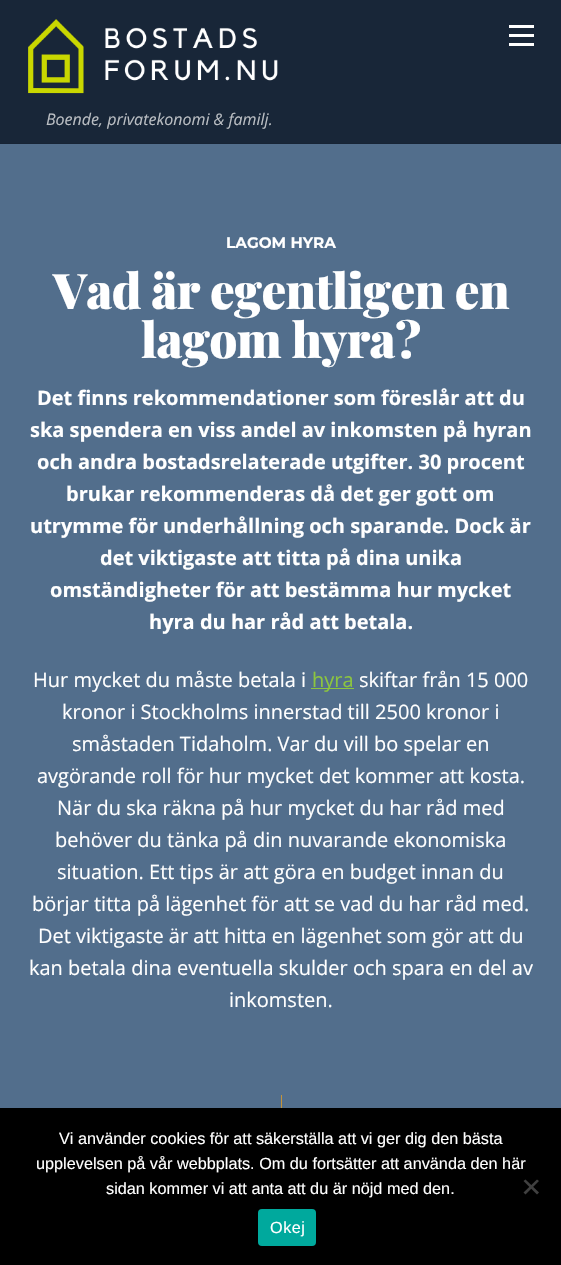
#include "include/core/SkBlurTypes.h"
#include "include/core/SkCanvas.h"
#include "include/core/SkData.h"
#include "include/core/SkFont.h"
#include "include/core/SkFontMgr.h"
#include "include/core/SkImage.h"
#include "include/core/SkMaskFilter.h"
#include "include/core/SkPaint.h"
#include "include/core/SkPathBuilder.h"
#include "include/core/SkTextBlob.h"
#include "include/effects/SkDashPathEffect.h"
#include "include/effects/SkGradientShader.h"
#include "include/utils/SkParsePath.h"

extern sk_sp<SkFontMgr> fontMgr;

static SkFont font(const char* family, int weight, float size, bool italic = false) {
    SkFontStyle style(weight, SkFontStyle::kNormal_Width,
        italic ? SkFontStyle::kItalic_Slant : SkFontStyle::kUpright_Slant);
    SkFont result(fontMgr->matchFamilyStyle(family, style), size);
    result.setSubpixel(true);
    return result;
}

static void drawLabel(SkCanvas* canvas, const char* s, float x, float y, const SkFont& font, SkColor color) {
    SkPaint ink(SkColor4f::FromColor(color));
    ink.setAntiAlias(true);
    canvas->drawString(s, x, y, font, ink);
}

static void drawTracked(SkCanvas* canvas, const char* s, float x, float y, const SkFont& font, const SkPaint& ink, float letter, float word) {
    std::vector<SkGlyphID> glyphs(font.countText(s, strlen(s), SkTextEncoding::kUTF8));
    std::vector<float> xs(glyphs.size());
    font.textToGlyphs(s, strlen(s), SkTextEncoding::kUTF8, glyphs);
    font.getXPos(glyphs, xs, x);
    float extra = 0;
    for (size_t i = 0; i < glyphs.size(); i++) {
        xs[i] += extra;
        extra += letter + word * (glyphs[i] == font.unicharToGlyph(' '));
    }
    canvas->drawTextBlob(SkTextBlob::MakeFromPosHGlyphs(glyphs, xs, y, font), 0, 0, ink);
}

static void fillRect(SkCanvas* canvas, float x, float y, float w, float h, SkColor color) {
    SkPaint ink(SkColor4f::FromColor(color));
    ink.setAntiAlias(true);
    canvas->drawRect(SkRect::MakeXYWH(x, y, w, h), ink);
}

static void fillRRect(SkCanvas* canvas, float x, float y, float w, float h, float radius, SkColor color) {
    SkPaint ink(SkColor4f::FromColor(color));
    ink.setAntiAlias(true);
    canvas->drawRoundRect(SkRect::MakeXYWH(x, y, w, h), radius, radius, ink);
}

static void drawPhoto(SkCanvas* canvas, const char* path, float x, float y, float w, float h) {
    auto image = SkImages::DeferredFromEncodedData(SkData::MakeFromFileName(path));
    canvas->drawImageRect(image, SkRect::MakeXYWH(x, y, w, h), SkSamplingOptions());
}

static SkPath parsePath(const char* data, bool evenOdd = false) {
    SkPath result = *SkParsePath::FromSVGString(data);
    if (evenOdd) result.setFillType(SkPathFillType::kEvenOdd);
    return result;
}

void draw(SkCanvas* canvas) {
    SkPaint paint;
    paint.setAntiAlias(true);
    canvas->clear(0xFF526E8C);
    fillRect(canvas, 0, 0, 561, 143, 0xFF182638);
    fillRect(canvas, 0, 143, 561, 1, 0xFF172435);
    fillRect(canvas, 509, 43, 25, 3, 0xFFFFFFFF);
    fillRect(canvas, 509, 25, 25, 3, 0xFFFFFFFF);
    fillRect(canvas, 509, 34, 25, 3, 0xFFFFFFFF);
    drawPhoto(canvas, "assets/img1.png", 28, 19, 250, 75);
    SkFont font1 = font("Open Sans", 400, 16, true);
    drawLabel(canvas, "Boende, privatekonomi & familj.", 46, 125, font1, 0xFFBABEC3);
    SkFont font2 = font("Montserrat", 700, 15.25f);
    drawLabel(canvas, "LAGOM HYRA", 226, 248, font2, 0xFFFFFFFF);
    SkFont font3 = font("Playfair Display", 900, 49);
    paint.setColor(0xFFFFFFFF);
    drawTracked(canvas, "Vad är egentligen en", 53, 309, font3, paint, -0.6f, 0);
    drawTracked(canvas, "lagom hyra?", 141, 358, font3, paint, -0.6f, 0);
    SkFont font4 = font("Open Sans", 700, 20);
    drawLabel(canvas, "Det finns rekommendationer som föreslår att du", 37, 405, font4, 0xFFFFFFFF);
    drawLabel(canvas, "ska spendera en viss andel av inkomsten på hyran", 30, 437, font4, 0xFFFFFFFF);
    drawLabel(canvas, "och andra bostadsrelaterade utgifter. 30 procent", 37, 469, font4, 0xFFFFFFFF);
    drawLabel(canvas, "brukar rekommenderas då det ger gott om", 66, 501, font4, 0xFFFFFFFF);
    drawLabel(canvas, "utrymme för underhållning och sparande. Dock är", 30, 533, font4, 0xFFFFFFFF);
    drawLabel(canvas, "det viktigaste att titta på dina unika", 100, 565, font4, 0xFFFFFFFF);
    drawLabel(canvas, "omständigheter för att bestämma hur mycket", 50, 597, font4, 0xFFFFFFFF);
    drawLabel(canvas, "hyra du har råd att betala.", 149, 629, font4, 0xFFFFFFFF);
    SkFont font5 = font("Open Sans", 400, 20);
    drawLabel(canvas, "Hur mycket du måste betala i", 33, 687, font5, 0xFFFFFFFF);
    fillRect(canvas, 311, 688, 43, 1, 0xFF8CC53F);
    drawLabel(canvas, "hyra", 312, 687, font5, 0xFF8CC53F);
    drawLabel(canvas, "skiftar från 15 000", 359, 687, font5, 0xFFFFFFFF);
    drawLabel(canvas, "kronor i Stockholms innerstad till 2500 kronor i", 62, 719, font5, 0xFFFFFFFF);
    drawLabel(canvas, "småstaden Tidaholm. Var du vill bo spelar en", 72, 751, font5, 0xFFFFFFFF);
    drawLabel(canvas, "avgörande roll för hur mycket det kommer att kosta.", 37, 783, font5, 0xFFFFFFFF);
    drawLabel(canvas, "När du ska räkna på hur mycket du har råd med", 57, 815, font5, 0xFFFFFFFF);
    drawLabel(canvas, "behöver du tänka på din nuvarande ekonomiska", 55, 847, font5, 0xFFFFFFFF);
    drawLabel(canvas, "situation. Ett tips är att göra en budget innan du", 57, 879, font5, 0xFFFFFFFF);
    drawLabel(canvas, "börjar titta på lägenhet för att se vad du har råd med.", 32, 911, font5, 0xFFFFFFFF);
    drawLabel(canvas, "Det viktigaste är att hitta en lägenhet som gör att du", 38, 943, font5, 0xFFFFFFFF);
    drawLabel(canvas, "kan betala dina eventuella skulder och spara en del av", 29, 975, font5, 0xFFFFFFFF);
    drawLabel(canvas, "inkomsten.", 229, 1007, font5, 0xFFFFFFFF);
    fillRect(canvas, 281, 1095, 1, 13, 0xFFC4943A);
    fillRect(canvas, 0, 1108, 561, 157, 0xFF000000);
    SkFont font6 = font("Liberation Sans", 400, 16.25f);
    drawLabel(canvas, "Vi använder cookies för att säkerställa att vi ger dig den bästa", 59, 1144, font6, 0xFFFFFFFF);
    drawLabel(canvas, "upplevelsen på vår webbplats. Om du fortsätter att använda den här", 36, 1169, font6, 0xFFFFFFFF);
    drawLabel(canvas, "sidan kommer vi att anta att du är nöjd med den.", 106, 1194, font6, 0xFFFFFFFF);
    paint.setColor(0xFF404040);
    canvas->drawPath(parsePath("M537 1179.5L539 1181L525.5 1194.5L523.5 1192.5Z"), paint);
    canvas->drawPath(parsePath("M523.5 1181L525.5 1179.5L539 1192.5L537 1194.5Z"), paint);
    fillRRect(canvas, 258, 1209, 58, 37, 4, 0xFF00A99D);
    paint.setColor(0xFFFFFFFF);
    drawTracked(canvas, "Okej", 270, 1233, font6, paint, 0.5f, 0);
}
